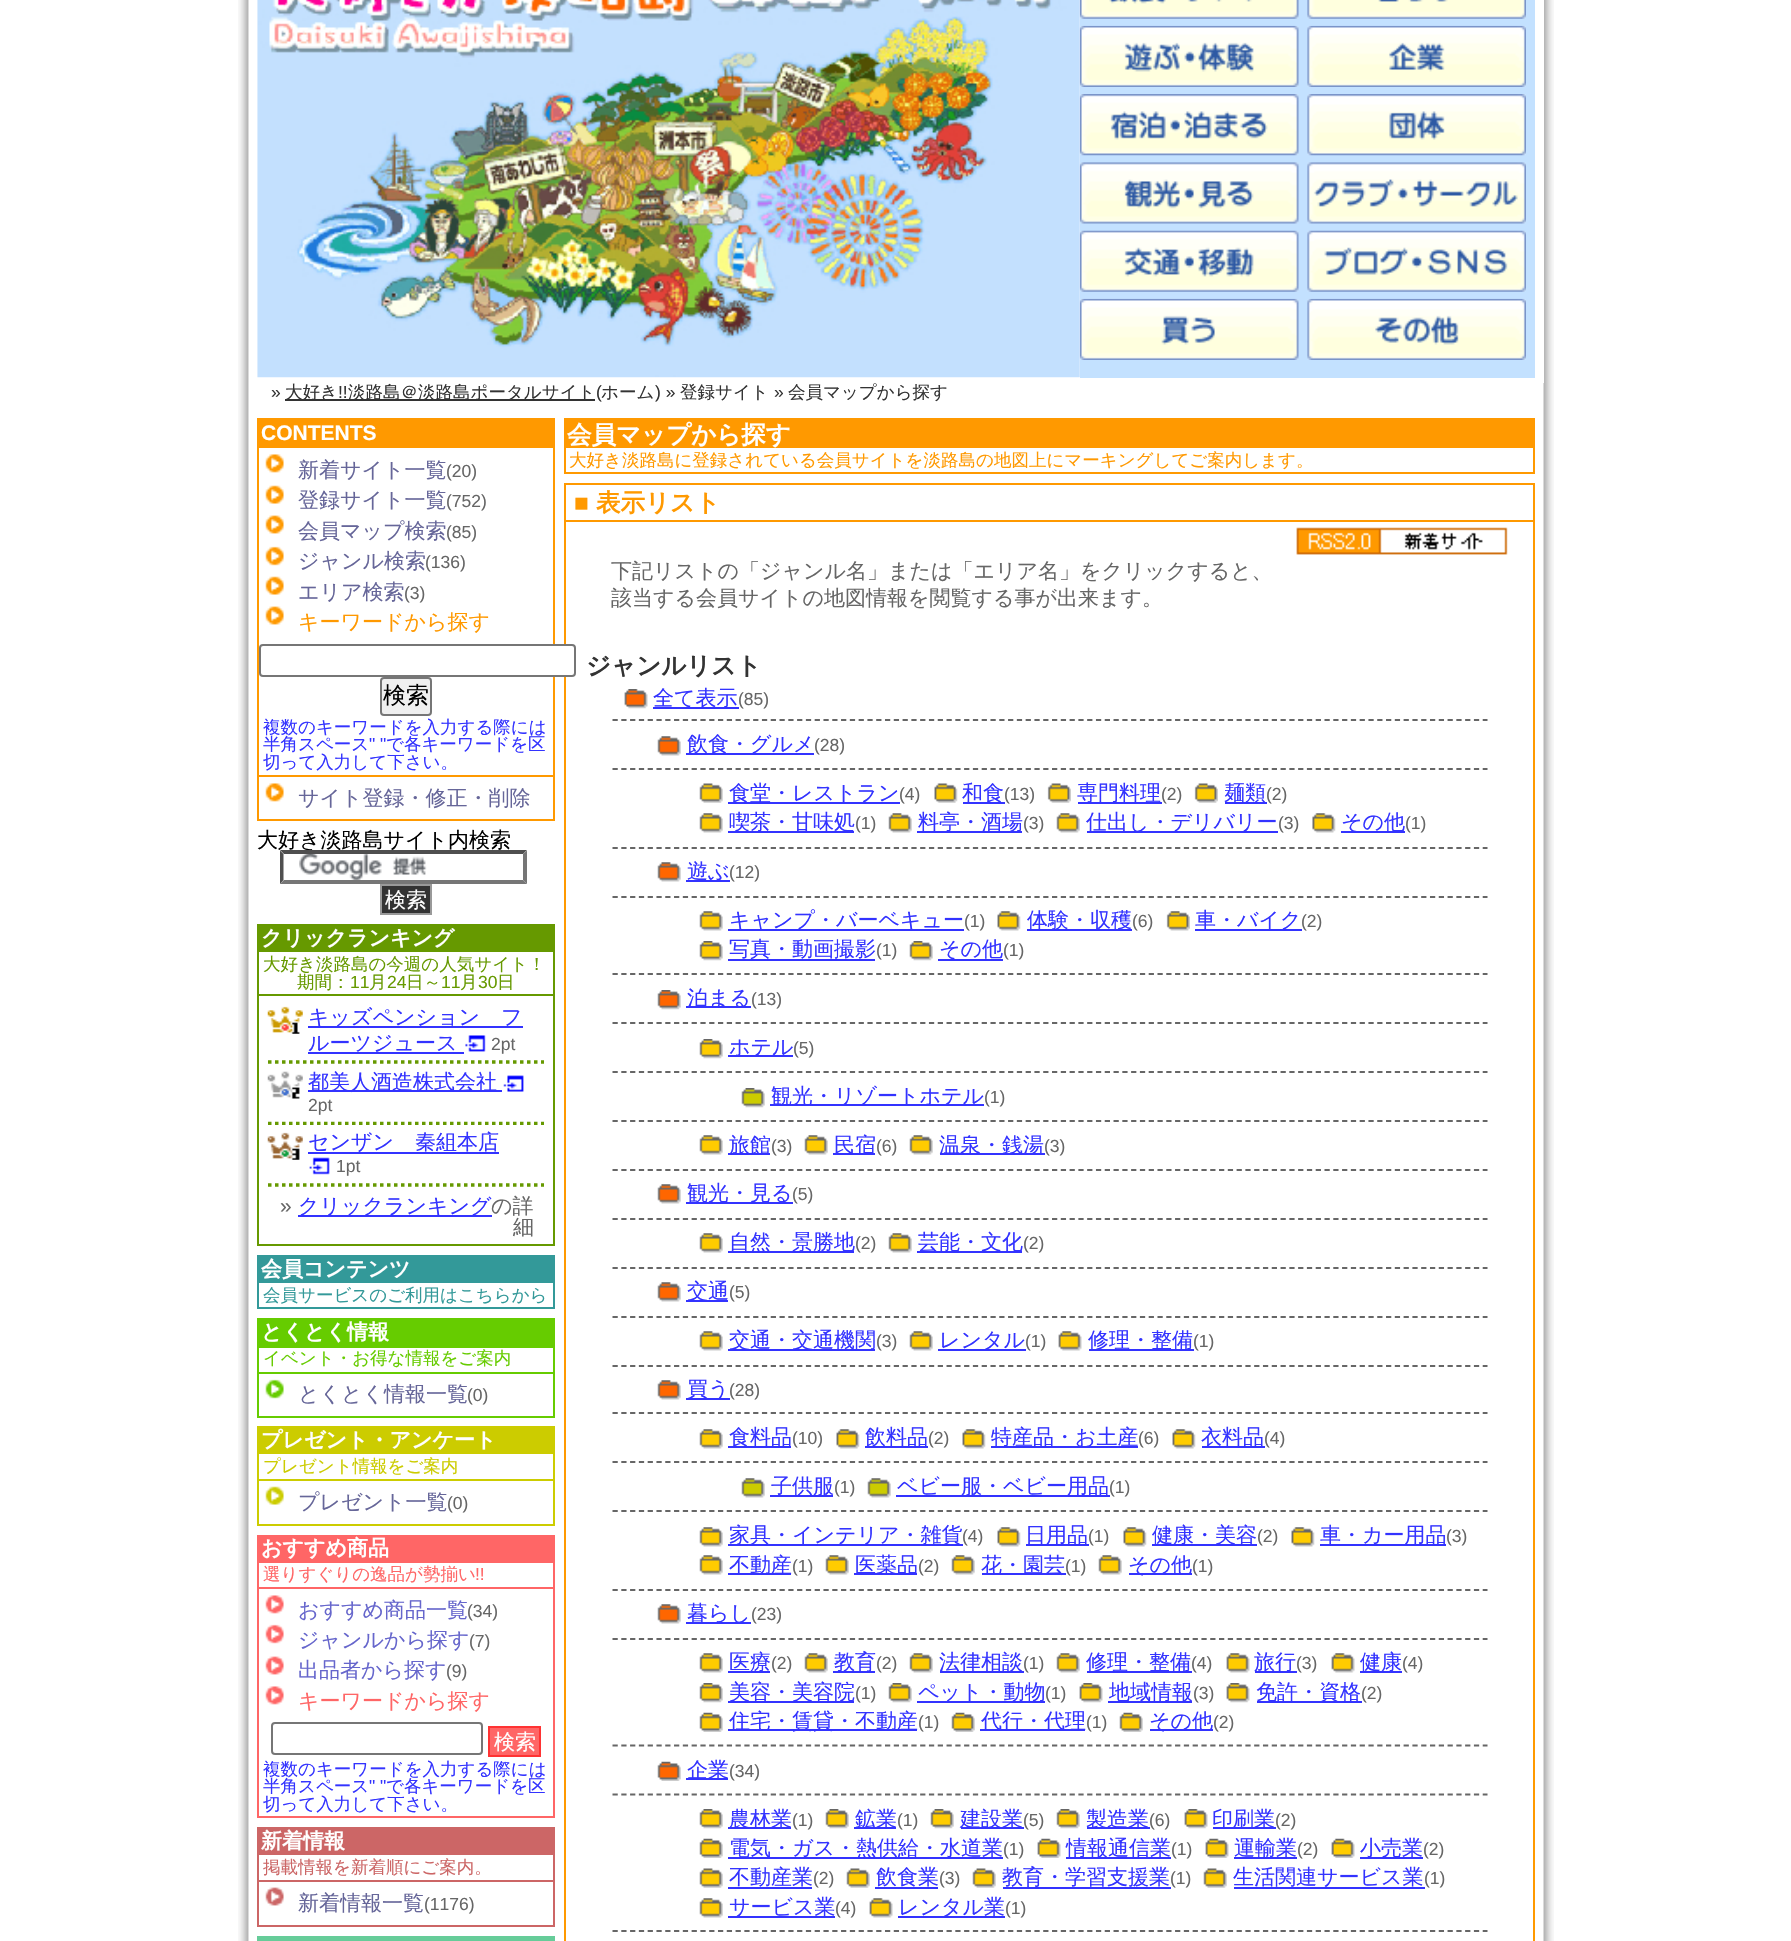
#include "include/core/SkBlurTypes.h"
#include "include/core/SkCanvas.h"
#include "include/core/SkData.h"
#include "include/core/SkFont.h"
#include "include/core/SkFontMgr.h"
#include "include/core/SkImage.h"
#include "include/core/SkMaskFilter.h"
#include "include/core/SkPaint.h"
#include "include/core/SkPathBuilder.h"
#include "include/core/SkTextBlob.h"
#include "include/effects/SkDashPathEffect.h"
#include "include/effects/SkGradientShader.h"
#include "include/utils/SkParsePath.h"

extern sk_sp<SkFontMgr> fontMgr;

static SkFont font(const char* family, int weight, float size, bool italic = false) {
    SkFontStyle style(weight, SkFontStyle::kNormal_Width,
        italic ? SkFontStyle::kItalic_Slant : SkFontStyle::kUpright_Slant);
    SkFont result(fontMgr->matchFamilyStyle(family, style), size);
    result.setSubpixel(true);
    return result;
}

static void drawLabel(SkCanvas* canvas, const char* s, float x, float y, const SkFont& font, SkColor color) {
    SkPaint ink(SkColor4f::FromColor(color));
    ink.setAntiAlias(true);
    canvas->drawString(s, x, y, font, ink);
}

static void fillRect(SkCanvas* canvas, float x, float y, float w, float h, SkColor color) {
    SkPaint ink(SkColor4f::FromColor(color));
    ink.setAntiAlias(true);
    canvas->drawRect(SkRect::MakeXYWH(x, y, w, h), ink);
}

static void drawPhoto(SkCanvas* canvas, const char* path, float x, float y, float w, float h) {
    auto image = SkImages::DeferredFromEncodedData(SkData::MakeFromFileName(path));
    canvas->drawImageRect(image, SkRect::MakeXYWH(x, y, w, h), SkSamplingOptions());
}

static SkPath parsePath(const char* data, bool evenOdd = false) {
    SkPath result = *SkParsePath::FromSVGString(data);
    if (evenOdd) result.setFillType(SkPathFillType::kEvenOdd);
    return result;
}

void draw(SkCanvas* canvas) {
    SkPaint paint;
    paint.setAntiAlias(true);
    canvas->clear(0xFFFFFFFF);
    drawPhoto(canvas, "assets/img1.png", 238, 0, 1316, 1941);
    fillRect(canvas, 1543, 0, 1, 383, 0xFFFFFFFF);
    drawPhoto(canvas, "assets/img2.png", 257, 0, 823, 378);
    fillRect(canvas, 1080, 0, 455, 378, 0xFFC3E1FF);
    drawPhoto(canvas, "assets/img3.png", 1079, 0, 220, 19);
    drawPhoto(canvas, "assets/img4.png", 1079, 25, 220, 62);
    drawPhoto(canvas, "assets/img5.png", 1079, 94, 220, 62);
    drawPhoto(canvas, "assets/img6.png", 1079, 162, 220, 62);
    drawPhoto(canvas, "assets/img7.png", 1079, 230, 220, 62);
    drawPhoto(canvas, "assets/img8.png", 1079, 298, 220, 62);
    drawPhoto(canvas, "assets/img9.png", 1307, 0, 219, 19);
    drawPhoto(canvas, "assets/img10.png", 1307, 25, 219, 62);
    drawPhoto(canvas, "assets/img11.png", 1307, 94, 219, 62);
    drawPhoto(canvas, "assets/img12.png", 1307, 162, 219, 62);
    drawPhoto(canvas, "assets/img13.png", 1307, 230, 219, 62);
    drawPhoto(canvas, "assets/img14.png", 1307, 298, 219, 62);
    SkFont font1 = font("Liberation Sans", 400, 17.5f);
    drawLabel(canvas, "»", 271, 398, font1, 0xFF333333);
    fillRect(canvas, 285, 399, 310, 2, 0xFF333333);
    SkFont font2 = font("WenQuanYi Zen Hei", 500, 17.5f);
    drawLabel(canvas, "大好き", 285, 398, font2, 0xFF333333);
    drawLabel(canvas, "!!", 338, 398, font1, 0xFF333333);
    drawLabel(canvas, "淡路島＠淡路島ポータルサイト", 348, 398, font2, 0xFF333333);
    drawLabel(canvas, "(", 596, 398, font1, 0xFF333333);
    drawLabel(canvas, "ホーム", 601, 398, font2, 0xFF333333);
    drawLabel(canvas, ") »", 655, 398, font1, 0xFF333333);
    drawLabel(canvas, "登録サイト", 680, 398, font2, 0xFF333333);
    drawLabel(canvas, "»", 774, 398, font1, 0xFF333333);
    drawLabel(canvas, "会員マップから探す", 788, 398, font2, 0xFF333333);
    paint.setStroke(true);
    paint.setStrokeWidth(2);
    paint.setColor(0xFFFF9900);
    canvas->drawRect(SkRect::MakeXYWH(258, 419, 296, 401), paint);
    fillRect(canvas, 259, 420, 294, 28, 0xFFFF9900);
    SkFont font3 = font("Liberation Sans", 700, 21);
    drawLabel(canvas, "CONTENTS", 261, 440, font3, 0xFFFFFFFF);
    drawPhoto(canvas, "assets/img15.png", 265, 454, 19, 19);
    SkFont font4 = font("WenQuanYi Zen Hei", 500, 21);
    drawLabel(canvas, "新着サイト一覧", 298, 477, font4, 0xFF666699);
    drawLabel(canvas, "(20)", 446, 477, font1, 0xFF666666);
    drawPhoto(canvas, "assets/img16.png", 265, 485, 19, 19);
    drawLabel(canvas, "登録サイト一覧", 298, 507, font4, 0xFF666699);
    drawLabel(canvas, "(752)", 446, 507, font1, 0xFF666666);
    drawPhoto(canvas, "assets/img17.png", 265, 515, 19, 19);
    drawLabel(canvas, "会員マップ検索", 298, 538, font4, 0xFF666699);
    drawLabel(canvas, "(85)", 446, 538, font1, 0xFF666666);
    drawPhoto(canvas, "assets/img18.png", 265, 546, 19, 20);
    drawLabel(canvas, "ジャンル検索", 298, 568, font4, 0xFF666699);
    drawLabel(canvas, "(136)", 425, 568, font1, 0xFF666666);
    drawPhoto(canvas, "assets/img16.png", 265, 576, 19, 19);
    drawLabel(canvas, "エリア検索", 298, 599, font4, 0xFF666699);
    drawLabel(canvas, "(3)", 404, 599, font1, 0xFF666666);
    drawPhoto(canvas, "assets/img17.png", 265, 606, 19, 19);
    drawLabel(canvas, "キーワードから探す", 298, 629, font4, 0xFFFF9900);
    canvas->drawRect(SkRect::MakeXYWH(565, 484, 969, 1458), paint);
    paint.setStroke(false);
    paint.setColor(0xFFFFFFFF);
    canvas->drawRoundRect(SkRect::MakeXYWH(260, 645, 315, 31), 3, 3, paint);
    paint.setStroke(true);
    paint.setColor(0xFF767676);
    canvas->drawRoundRect(SkRect::MakeXYWH(260, 645, 315, 31), 3, 3, paint);
    paint.setStroke(false);
    paint.setColor(0xFFEFEFEF);
    canvas->drawRoundRect(SkRect::MakeXYWH(381, 678, 50, 37), 3, 3, paint);
    paint.setStroke(true);
    paint.setColor(0xFF767676);
    canvas->drawRoundRect(SkRect::MakeXYWH(381, 678, 50, 37), 3, 3, paint);
    SkFont font5 = font("WenQuanYi Zen Hei", 500, 23);
    drawLabel(canvas, "検索", 383, 703, font5, 0xFF000000);
    drawLabel(canvas, "複数のキーワードを入力する際には", 263, 733, font2, 0xFF3333FF);
    drawLabel(canvas, "半角スペース", 263, 750, font2, 0xFF3333FF);
    drawLabel(canvas, "\" \"", 369, 750, font1, 0xFF3333FF);
    drawLabel(canvas, "で各キーワードを区", 386, 750, font2, 0xFF3333FF);
    drawLabel(canvas, "切って入力して下さい。", 263, 768, font2, 0xFF3333FF);
    fillRect(canvas, 259, 775, 294, 2, 0xFFFF9900);
    drawPhoto(canvas, "assets/img15.png", 265, 783, 19, 19);
    drawLabel(canvas, "サイト登録・修正・削除", 298, 805, font4, 0xFF666699);
    drawLabel(canvas, "大好き淡路島サイト内検索", 257, 847, font4, 0xFF000000);
    drawPhoto(canvas, "assets/img19.png", 299, 854, 128, 26);
    paint.setStroke(false);
    paint.setColor(0xFF4F4F4F);
    canvas->drawPath(parsePath("M280 850H527L523 854H284Z"), paint);
    paint.setColor(0xFF767676);
    canvas->drawPath(parsePath("M527 850.5V884L523 880V854Z"), paint);
    canvas->drawPath(parsePath("M527 884H280L284 880H523Z"), paint);
    paint.setColor(0xFF4F4F4F);
    canvas->drawPath(parsePath("M280 884V850.5L283.5 854V880Z"), paint);
    paint.setColor(0xFF333333);
    canvas->drawRect(SkRect::MakeXYWH(381, 885, 50, 29), paint);
    paint.setStroke(true);
    paint.setColor(0xFF999999);
    canvas->drawRect(SkRect::MakeXYWH(381, 885, 50, 29), paint);
    drawLabel(canvas, "検索", 385, 907, font4, 0xFFFFFFFF);
    paint.setColor(0xFF669900);
    canvas->drawRect(SkRect::MakeXYWH(258, 925, 296, 320), paint);
    fillRect(canvas, 259, 926, 294, 26, 0xFF669900);
    SkFont font6 = font("WenQuanYi Zen Hei", 700, 21);
    drawLabel(canvas, "クリックランキング", 261, 945, font6, 0xFFFFFFFF);
    drawLabel(canvas, "大好き淡路島の今週の人気サイト！", 263, 970, font2, 0xFF669900);
    drawLabel(canvas, "期間：", 297, 988, font2, 0xFF669900);
    drawLabel(canvas, "11", 350, 988, font1, 0xFF669900);
    drawLabel(canvas, "月", 369, 988, font2, 0xFF669900);
    drawLabel(canvas, "24", 387, 988, font1, 0xFF669900);
    drawLabel(canvas, "日～", 406, 988, font2, 0xFF669900);
    drawLabel(canvas, "11", 441, 988, font1, 0xFF669900);
    drawLabel(canvas, "月", 460, 988, font2, 0xFF669900);
    drawLabel(canvas, "30", 478, 988, font1, 0xFF669900);
    drawLabel(canvas, "日", 497, 988, font2, 0xFF669900);
    fillRect(canvas, 259, 994, 294, 2, 0xFF669900);
    paint.setStrokeWidth(3.5f);
    paint.setPathEffect(SkDashPathEffect::Make({{3.5f, 3.5f}}, 0));
    canvas->drawPath(parsePath("M268 1062H544"), paint);
    paint.setPathEffect(nullptr);
    drawPhoto(canvas, "assets/img20.png", 267, 1006, 36, 28);
    fillRect(canvas, 308, 1026, 215, 2, 0xFF3333FF);
    drawLabel(canvas, "キッズペンション　フ", 308, 1024, font4, 0xFF3333FF);
    drawLabel(canvas, "ルーツジュース", 308, 1050, font4, 0xFF3333FF);
    fillRect(canvas, 308, 1052, 156, 2, 0xFF3333FF);
    drawPhoto(canvas, "assets/img21.png", 465, 1035, 21, 17);
    drawLabel(canvas, "2pt", 491, 1050, font1, 0xFF666666);
    paint.setPathEffect(SkDashPathEffect::Make({{3.5f, 3.5f}}, 0));
    canvas->drawPath(parsePath("M268 1123.5H544"), paint);
    paint.setPathEffect(nullptr);
    drawPhoto(canvas, "assets/img22.png", 267, 1071, 36, 28);
    fillRect(canvas, 308, 1090, 194, 2, 0xFF3333FF);
    drawLabel(canvas, "都美人酒造株式会社", 308, 1089, font4, 0xFF3333FF);
    drawPhoto(canvas, "assets/img23.png", 503, 1075, 21, 17);
    drawLabel(canvas, "2pt", 308, 1111, font1, 0xFF666666);
    fillRect(canvas, 268, 1125, 276, 1, 0xFFFFFFFF);
    paint.setPathEffect(SkDashPathEffect::Make({{3.5f, 3.5f}}, 0));
    canvas->drawPath(parsePath("M268 1185H544"), paint);
    paint.setPathEffect(nullptr);
    drawPhoto(canvas, "assets/img24.png", 267, 1132, 36, 28);
    fillRect(canvas, 308, 1152, 191, 2, 0xFF3333FF);
    drawLabel(canvas, "センザン　秦組本店", 308, 1149, font4, 0xFF3333FF);
    drawPhoto(canvas, "assets/img25.png", 309, 1157, 21, 18);
    drawLabel(canvas, "1pt", 336, 1172, font1, 0xFF666666);
    SkFont font7 = font("Liberation Sans", 400, 21);
    drawLabel(canvas, "»", 280, 1213, font7, 0xFF666666);
    fillRect(canvas, 298, 1215, 194, 2, 0xFF3333FF);
    drawLabel(canvas, "クリックランキング", 298, 1213, font4, 0xFF3333FF);
    drawLabel(canvas, "の詳", 491, 1213, font4, 0xFF666666);
    drawLabel(canvas, "細", 513, 1234, font4, 0xFF666666);
    paint.setStrokeWidth(2);
    paint.setColor(0xFF339999);
    canvas->drawRect(SkRect::MakeXYWH(258, 1256, 296, 52), paint);
    fillRect(canvas, 259, 1257, 294, 26, 0xFF339999);
    drawLabel(canvas, "会員コンテンツ", 261, 1276, font6, 0xFFFFFFFF);
    drawLabel(canvas, "会員サービスのご利用はこちらから", 263, 1301, font2, 0xFF339999);
    paint.setColor(0xFF66CC00);
    canvas->drawRect(SkRect::MakeXYWH(258, 1319, 296, 98), paint);
    fillRect(canvas, 259, 1320, 294, 28, 0xFF66CC00);
    drawLabel(canvas, "とくとく情報", 261, 1339, font6, 0xFFFFFFFF);
    drawLabel(canvas, "イベント・お得な情報をご案内", 263, 1364, font2, 0xFF66CC00);
    fillRect(canvas, 259, 1372, 294, 2, 0xFF66CC00);
    drawPhoto(canvas, "assets/img26.png", 265, 1379, 19, 20);
    drawLabel(canvas, "とくとく情報一覧", 298, 1401, font4, 0xFF666699);
    drawLabel(canvas, "(0)", 467, 1401, font1, 0xFF666666);
    paint.setColor(0xFFCCCC00);
    canvas->drawRect(SkRect::MakeXYWH(258, 1427, 296, 98), paint);
    fillRect(canvas, 259, 1428, 294, 26, 0xFFCCCC00);
    drawLabel(canvas, "プレゼント・アンケート", 261, 1447, font6, 0xFFFFFFFF);
    drawLabel(canvas, "プレゼント情報をご案内", 263, 1472, font2, 0xFFCCCC00);
    fillRect(canvas, 259, 1479, 294, 2, 0xFFCCCC00);
    drawPhoto(canvas, "assets/img27.png", 265, 1486, 19, 19);
    drawLabel(canvas, "プレゼント一覧", 298, 1509, font4, 0xFF666699);
    drawLabel(canvas, "(0)", 447, 1509, font1, 0xFF666666);
    paint.setColor(0xFFFF6666);
    canvas->drawRect(SkRect::MakeXYWH(258, 1536, 296, 281), paint);
    fillRect(canvas, 259, 1537, 294, 26, 0xFFFF6666);
    drawLabel(canvas, "おすすめ商品", 261, 1555, font6, 0xFFFFFFFF);
    drawLabel(canvas, "選りすぐりの逸品が勢揃い", 263, 1580, font2, 0xFFFF6666);
    drawLabel(canvas, "!!", 475, 1580, font1, 0xFFFF6666);
    fillRect(canvas, 259, 1587, 294, 2, 0xFFFF6666);
    drawPhoto(canvas, "assets/img28.png", 265, 1595, 19, 19);
    drawLabel(canvas, "おすすめ商品一覧", 298, 1617, font4, 0xFF6666CC);
    drawLabel(canvas, "(34)", 467, 1617, font1, 0xFF666666);
    drawPhoto(canvas, "assets/img29.png", 265, 1624, 19, 20);
    drawLabel(canvas, "ジャンルから探す", 298, 1647, font4, 0xFF6666CC);
    drawLabel(canvas, "(7)", 469, 1647, font1, 0xFF666666);
    drawPhoto(canvas, "assets/img30.png", 265, 1656, 19, 19);
    drawLabel(canvas, "出品者から探す", 298, 1677, font4, 0xFF6666CC);
    drawLabel(canvas, "(9)", 446, 1677, font1, 0xFF666666);
    drawPhoto(canvas, "assets/img28.png", 265, 1686, 19, 19);
    drawLabel(canvas, "キーワードから探す", 298, 1708, font4, 0xFFFF6666);
    paint.setColor(0xFF767676);
    canvas->drawRoundRect(SkRect::MakeXYWH(272, 1723, 210, 31), 3, 3, paint);
    paint.setStroke(false);
    paint.setColor(0xFFFF6666);
    canvas->drawRect(SkRect::MakeXYWH(489, 1727, 51, 29), paint);
    paint.setStroke(true);
    paint.setColor(0xFFFF3333);
    canvas->drawRect(SkRect::MakeXYWH(489, 1727, 51, 29), paint);
    drawLabel(canvas, "検索", 494, 1749, font4, 0xFFFFFFFF);
    drawLabel(canvas, "複数のキーワードを入力する際には", 263, 1775, font2, 0xFF3333FF);
    drawLabel(canvas, "半角スペース", 263, 1792, font2, 0xFF3333FF);
    drawLabel(canvas, "\" \"", 369, 1792, font1, 0xFF3333FF);
    drawLabel(canvas, "で各キーワードを区", 386, 1792, font2, 0xFF3333FF);
    drawLabel(canvas, "切って入力して下さい。", 263, 1810, font2, 0xFF3333FF);
    paint.setColor(0xFFCC6666);
    canvas->drawRect(SkRect::MakeXYWH(258, 1828, 296, 98), paint);
    fillRect(canvas, 259, 1829, 294, 26, 0xFFCC6666);
    drawLabel(canvas, "新着情報", 261, 1848, font6, 0xFFFFFFFF);
    drawLabel(canvas, "掲載情報を新着順にご案内。", 263, 1873, font2, 0xFFCC6666);
    fillRect(canvas, 259, 1880, 294, 2, 0xFFCC6666);
    drawPhoto(canvas, "assets/img31.png", 265, 1887, 19, 19);
    drawLabel(canvas, "新着情報一覧", 298, 1910, font4, 0xFF666699);
    drawLabel(canvas, "(1176)", 424, 1910, font1, 0xFF666666);
    paint.setColor(0xFF66CC99);
    canvas->drawRect(SkRect::MakeXYWH(258, 1937, 296, 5), paint);
    fillRect(canvas, 259, 1938, 294, 3, 0xFF66CC99);
    paint.setColor(0xFFFF9900);
    canvas->drawRect(SkRect::MakeXYWH(565, 419, 969, 54), paint);
    fillRect(canvas, 566, 420, 967, 28, 0xFFFF9900);
    SkFont font8 = font("WenQuanYi Zen Hei", 700, 24.5f);
    drawLabel(canvas, "会員マップから探す", 567, 443, font8, 0xFFFFFFFF);
    drawLabel(canvas, "大好き淡路島に登録されている会員サイトを淡路島の地図上にマーキングしてご案内します。", 569, 466, font2, 0xFFFF9900);
    SkFont font9 = font("Liberation Sans", 700, 24.5f);
    drawLabel(canvas, "■", 574, 511, font9, 0xFFFF9900);
    drawLabel(canvas, "表示リスト", 596, 511, font8, 0xFFFF9900);
    fillRect(canvas, 565, 520, 968, 2, 0xFFFF9900);
    drawPhoto(canvas, "assets/img32.png", 1296, 527, 212, 28);
    drawLabel(canvas, "下記リストの「ジャンル名」または「エリア名」をクリックすると、", 611, 578, font4, 0xFF666666);
    drawLabel(canvas, "該当する会員サイトの地図情報を閲覧する事が出来ます。", 611, 605, font4, 0xFF666666);
    drawLabel(canvas, "ジャンルリスト", 586, 674, font8, 0xFF333333);
    paint.setStrokeWidth(1.8f);
    paint.setColor(0xFF666666);
    paint.setPathEffect(SkDashPathEffect::Make({{5.25f, 3.54f}}, 0));
    canvas->drawPath(parsePath("M612.5 720H1487.5"), paint);
    paint.setPathEffect(nullptr);
    drawPhoto(canvas, "assets/img33.png", 624, 689, 24, 20);
    fillRect(canvas, 653, 707, 86, 2, 0xFF3333FF);
    drawLabel(canvas, "全て表示", 653, 705, font4, 0xFF3333FF);
    drawLabel(canvas, "(85)", 738, 705, font1, 0xFF666666);
    paint.setPathEffect(SkDashPathEffect::Make({{5.25f, 3.54f}}, 0));
    canvas->drawPath(parsePath("M612.5 769H1487.5"), paint);
    paint.setPathEffect(nullptr);
    drawPhoto(canvas, "assets/img34.png", 657, 736, 24, 20);
    fillRect(canvas, 686, 753, 128, 2, 0xFF3333FF);
    drawLabel(canvas, "飲食・グルメ", 687, 751, font4, 0xFF3333FF);
    drawLabel(canvas, "(28)", 814, 751, font1, 0xFF666666);
    paint.setPathEffect(SkDashPathEffect::Make({{5.25f, 3.54f}}, 0));
    canvas->drawPath(parsePath("M612.5 848H1487.5"), paint);
    paint.setPathEffect(nullptr);
    drawPhoto(canvas, "assets/img35.png", 699, 783, 24, 20);
    fillRect(canvas, 728, 802, 172, 2, 0xFF3333FF);
    drawLabel(canvas, "食堂・レストラン", 729, 800, font4, 0xFF3333FF);
    drawLabel(canvas, "(4)", 899, 800, font1, 0xFF666666);
    drawPhoto(canvas, "assets/img36.png", 934, 783, 24, 20);
    fillRect(canvas, 963, 802, 42, 2, 0xFF3333FF);
    drawLabel(canvas, "和食", 962, 800, font4, 0xFF3333FF);
    drawLabel(canvas, "(13)", 1004, 800, font1, 0xFF666666);
    drawPhoto(canvas, "assets/img37.png", 1047, 783, 24, 20);
    fillRect(canvas, 1078, 802, 84, 2, 0xFF3333FF);
    drawLabel(canvas, "専門料理", 1077, 800, font4, 0xFF3333FF);
    drawLabel(canvas, "(2)", 1161, 800, font1, 0xFF666666);
    drawPhoto(canvas, "assets/img37.png", 1194, 783, 24, 20);
    fillRect(canvas, 1225, 802, 42, 2, 0xFF3333FF);
    drawLabel(canvas, "麺類", 1224, 800, font4, 0xFF3333FF);
    drawLabel(canvas, "(2)", 1266, 800, font1, 0xFF666666);
    drawPhoto(canvas, "assets/img38.png", 699, 813, 24, 20);
    fillRect(canvas, 728, 831, 126, 2, 0xFF3333FF);
    drawLabel(canvas, "喫茶・甘味処", 729, 829, font4, 0xFF3333FF);
    drawLabel(canvas, "(1)", 855, 829, font1, 0xFF666666);
    drawPhoto(canvas, "assets/img39.png", 888, 813, 24, 20);
    fillRect(canvas, 917, 831, 105, 2, 0xFF3333FF);
    drawLabel(canvas, "料亭・酒場", 918, 829, font4, 0xFF3333FF);
    drawLabel(canvas, "(3)", 1023, 829, font1, 0xFF666666);
    drawPhoto(canvas, "assets/img38.png", 1056, 813, 24, 20);
    fillRect(canvas, 1087, 831, 191, 2, 0xFF3333FF);
    drawLabel(canvas, "仕出し・デリバリー", 1086, 829, font4, 0xFF3333FF);
    drawLabel(canvas, "(3)", 1278, 829, font1, 0xFF666666);
    drawPhoto(canvas, "assets/img40.png", 1312, 813, 24, 20);
    fillRect(canvas, 1341, 831, 64, 2, 0xFF3333FF);
    drawLabel(canvas, "その他", 1341, 829, font4, 0xFF3333FF);
    drawLabel(canvas, "(1)", 1405, 829, font1, 0xFF666666);
    paint.setPathEffect(SkDashPathEffect::Make({{5.25f, 3.54f}}, 0));
    canvas->drawPath(parsePath("M612.5 897H1487.5"), paint);
    paint.setPathEffect(nullptr);
    drawPhoto(canvas, "assets/img34.png", 657, 862, 24, 20);
    fillRect(canvas, 686, 880, 44, 2, 0xFF3333FF);
    drawLabel(canvas, "遊ぶ", 687, 878, font4, 0xFF3333FF);
    drawLabel(canvas, "(12)", 729, 878, font1, 0xFF666666);
    paint.setPathEffect(SkDashPathEffect::Make({{5.25f, 3.54f}}, 0));
    canvas->drawPath(parsePath("M612.5 974H1487.5"), paint);
    paint.setPathEffect(nullptr);
    drawPhoto(canvas, "assets/img38.png", 699, 911, 24, 20);
    fillRect(canvas, 728, 929, 236, 2, 0xFF3333FF);
    drawLabel(canvas, "キャンプ・バーベキュー", 729, 927, font4, 0xFF3333FF);
    drawLabel(canvas, "(1)", 964, 927, font1, 0xFF666666);
    drawPhoto(canvas, "assets/img41.png", 997, 911, 24, 20);
    fillRect(canvas, 1027, 929, 105, 2, 0xFF3333FF);
    drawLabel(canvas, "体験・収穫", 1027, 927, font4, 0xFF3333FF);
    drawLabel(canvas, "(6)", 1132, 927, font1, 0xFF666666);
    drawPhoto(canvas, "assets/img42.png", 1166, 911, 24, 20);
    fillRect(canvas, 1195, 929, 107, 2, 0xFF3333FF);
    drawLabel(canvas, "車・バイク", 1195, 927, font4, 0xFF3333FF);
    drawLabel(canvas, "(2)", 1301, 927, font1, 0xFF666666);
    drawPhoto(canvas, "assets/img43.png", 699, 941, 24, 20);
    fillRect(canvas, 728, 959, 147, 2, 0xFF3333FF);
    drawLabel(canvas, "写真・動画撮影", 729, 956, font4, 0xFF3333FF);
    drawLabel(canvas, "(1)", 876, 956, font1, 0xFF666666);
    drawPhoto(canvas, "assets/img44.png", 909, 941, 24, 20);
    fillRect(canvas, 938, 959, 65, 2, 0xFF3333FF);
    drawLabel(canvas, "その他", 939, 956, font4, 0xFF3333FF);
    drawLabel(canvas, "(1)", 1003, 956, font1, 0xFF666666);
    paint.setPathEffect(SkDashPathEffect::Make({{5.25f, 3.54f}}, 0));
    canvas->drawPath(parsePath("M612.5 1023H1487.5"), paint);
    paint.setPathEffect(nullptr);
    drawPhoto(canvas, "assets/img45.png", 657, 990, 24, 20);
    fillRect(canvas, 686, 1006, 65, 2, 0xFF3333FF);
    drawLabel(canvas, "泊まる", 687, 1005, font4, 0xFF3333FF);
    drawLabel(canvas, "(13)", 751, 1005, font1, 0xFF666666);
    paint.setPathEffect(SkDashPathEffect::Make({{5.25f, 3.54f}}, 0));
    canvas->drawPath(parsePath("M612.5 1072H1487.5"), paint);
    paint.setPathEffect(nullptr);
    drawPhoto(canvas, "assets/img43.png", 699, 1039, 24, 20);
    fillRect(canvas, 728, 1055, 65, 2, 0xFF3333FF);
    drawLabel(canvas, "ホテル", 729, 1054, font4, 0xFF3333FF);
    drawLabel(canvas, "(5)", 793, 1054, font1, 0xFF666666);
    paint.setPathEffect(SkDashPathEffect::Make({{5.25f, 3.54f}}, 0));
    canvas->drawPath(parsePath("M612.5 1121H1487.5"), paint);
    paint.setPathEffect(nullptr);
    drawPhoto(canvas, "assets/img46.png", 741, 1088, 24, 20);
    fillRect(canvas, 770, 1104, 214, 2, 0xFF3333FF);
    drawLabel(canvas, "観光・リゾートホテル", 771, 1103, font4, 0xFF3333FF);
    drawLabel(canvas, "(1)", 984, 1103, font1, 0xFF666666);
    paint.setPathEffect(SkDashPathEffect::Make({{5.25f, 3.54f}}, 0));
    canvas->drawPath(parsePath("M612.5 1170H1487.5"), paint);
    paint.setPathEffect(nullptr);
    drawPhoto(canvas, "assets/img38.png", 699, 1135, 24, 20);
    fillRect(canvas, 728, 1153, 42, 2, 0xFF3333FF);
    drawLabel(canvas, "旅館", 729, 1152, font4, 0xFF3333FF);
    drawLabel(canvas, "(3)", 771, 1152, font1, 0xFF666666);
    drawPhoto(canvas, "assets/img39.png", 804, 1135, 24, 20);
    fillRect(canvas, 833, 1153, 42, 2, 0xFF3333FF);
    drawLabel(canvas, "民宿", 834, 1152, font4, 0xFF3333FF);
    drawLabel(canvas, "(6)", 876, 1152, font1, 0xFF666666);
    drawPhoto(canvas, "assets/img39.png", 909, 1135, 24, 20);
    fillRect(canvas, 940, 1153, 105, 2, 0xFF3333FF);
    drawLabel(canvas, "温泉・銭湯", 939, 1152, font4, 0xFF3333FF);
    drawLabel(canvas, "(3)", 1044, 1152, font1, 0xFF666666);
    paint.setPathEffect(SkDashPathEffect::Make({{5.25f, 3.54f}}, 0));
    canvas->drawPath(parsePath("M612.5 1219H1487.5"), paint);
    paint.setPathEffect(nullptr);
    drawPhoto(canvas, "assets/img34.png", 657, 1184, 24, 20);
    fillRect(canvas, 686, 1202, 107, 2, 0xFF3333FF);
    drawLabel(canvas, "観光・見る", 687, 1200, font4, 0xFF3333FF);
    drawLabel(canvas, "(5)", 792, 1200, font1, 0xFF666666);
    paint.setPathEffect(SkDashPathEffect::Make({{5.25f, 3.54f}}, 0));
    canvas->drawPath(parsePath("M612.5 1268H1487.5"), paint);
    paint.setPathEffect(nullptr);
    drawPhoto(canvas, "assets/img38.png", 699, 1233, 24, 20);
    fillRect(canvas, 728, 1251, 126, 2, 0xFF3333FF);
    drawLabel(canvas, "自然・景勝地", 729, 1249, font4, 0xFF3333FF);
    drawLabel(canvas, "(2)", 855, 1249, font1, 0xFF666666);
    drawPhoto(canvas, "assets/img39.png", 888, 1233, 24, 20);
    fillRect(canvas, 917, 1251, 105, 2, 0xFF3333FF);
    drawLabel(canvas, "芸能・文化", 918, 1249, font4, 0xFF3333FF);
    drawLabel(canvas, "(2)", 1023, 1249, font1, 0xFF666666);
    paint.setPathEffect(SkDashPathEffect::Make({{5.25f, 3.54f}}, 0));
    canvas->drawPath(parsePath("M612.5 1317H1487.5"), paint);
    paint.setPathEffect(nullptr);
    drawPhoto(canvas, "assets/img34.png", 657, 1282, 24, 20);
    fillRect(canvas, 686, 1300, 42, 2, 0xFF3333FF);
    drawLabel(canvas, "交通", 687, 1298, font4, 0xFF3333FF);
    drawLabel(canvas, "(5)", 729, 1298, font1, 0xFF666666);
    paint.setPathEffect(SkDashPathEffect::Make({{5.25f, 3.54f}}, 0));
    canvas->drawPath(parsePath("M612.5 1366H1487.5"), paint);
    paint.setPathEffect(nullptr);
    drawPhoto(canvas, "assets/img38.png", 699, 1331, 24, 20);
    fillRect(canvas, 728, 1349, 147, 2, 0xFF3333FF);
    drawLabel(canvas, "交通・交通機関", 729, 1347, font4, 0xFF3333FF);
    drawLabel(canvas, "(3)", 876, 1347, font1, 0xFF666666);
    drawPhoto(canvas, "assets/img39.png", 909, 1331, 24, 20);
    fillRect(canvas, 938, 1349, 88, 2, 0xFF3333FF);
    drawLabel(canvas, "レンタル", 939, 1347, font4, 0xFF3333FF);
    drawLabel(canvas, "(1)", 1025, 1347, font1, 0xFF666666);
    drawPhoto(canvas, "assets/img47.png", 1058, 1331, 24, 20);
    fillRect(canvas, 1089, 1349, 105, 2, 0xFF3333FF);
    drawLabel(canvas, "修理・整備", 1088, 1347, font4, 0xFF3333FF);
    drawLabel(canvas, "(1)", 1193, 1347, font1, 0xFF666666);
    paint.setPathEffect(SkDashPathEffect::Make({{5.25f, 3.54f}}, 0));
    canvas->drawPath(parsePath("M612.5 1413H1487.5"), paint);
    paint.setPathEffect(nullptr);
    drawPhoto(canvas, "assets/img34.png", 657, 1380, 24, 20);
    fillRect(canvas, 686, 1398, 44, 2, 0xFF3333FF);
    drawLabel(canvas, "買う", 687, 1396, font4, 0xFF3333FF);
    drawLabel(canvas, "(28)", 729, 1396, font1, 0xFF666666);
    paint.setPathEffect(SkDashPathEffect::Make({{5.25f, 3.54f}}, 0));
    canvas->drawPath(parsePath("M612.5 1462H1487.5"), paint);
    paint.setPathEffect(nullptr);
    drawPhoto(canvas, "assets/img38.png", 699, 1429, 24, 20);
    fillRect(canvas, 728, 1446, 63, 2, 0xFF3333FF);
    drawLabel(canvas, "食料品", 729, 1444, font4, 0xFF3333FF);
    drawLabel(canvas, "(10)", 792, 1444, font1, 0xFF666666);
    drawPhoto(canvas, "assets/img48.png", 836, 1429, 24, 20);
    fillRect(canvas, 865, 1446, 63, 2, 0xFF3333FF);
    drawLabel(canvas, "飲料品", 865, 1444, font4, 0xFF3333FF);
    drawLabel(canvas, "(2)", 928, 1444, font1, 0xFF666666);
    drawPhoto(canvas, "assets/img48.png", 962, 1429, 24, 20);
    fillRect(canvas, 991, 1446, 147, 2, 0xFF3333FF);
    drawLabel(canvas, "特産品・お土産", 991, 1444, font4, 0xFF3333FF);
    drawLabel(canvas, "(6)", 1138, 1444, font1, 0xFF666666);
    drawPhoto(canvas, "assets/img48.png", 1172, 1429, 24, 20);
    fillRect(canvas, 1202, 1446, 63, 2, 0xFF3333FF);
    drawLabel(canvas, "衣料品", 1201, 1444, font4, 0xFF3333FF);
    drawLabel(canvas, "(4)", 1264, 1444, font1, 0xFF666666);
    paint.setPathEffect(SkDashPathEffect::Make({{5.25f, 3.54f}}, 0));
    canvas->drawPath(parsePath("M612.5 1511H1487.5"), paint);
    paint.setPathEffect(nullptr);
    drawPhoto(canvas, "assets/img49.png", 741, 1478, 24, 20);
    fillRect(canvas, 770, 1495, 63, 2, 0xFF3333FF);
    drawLabel(canvas, "子供服", 771, 1493, font4, 0xFF3333FF);
    drawLabel(canvas, "(1)", 834, 1493, font1, 0xFF666666);
    drawPhoto(canvas, "assets/img50.png", 867, 1478, 24, 20);
    fillRect(canvas, 896, 1495, 214, 2, 0xFF3333FF);
    drawLabel(canvas, "ベビー服・ベビー用品", 897, 1493, font4, 0xFF3333FF);
    drawLabel(canvas, "(1)", 1109, 1493, font1, 0xFF666666);
    paint.setPathEffect(SkDashPathEffect::Make({{5.25f, 3.54f}}, 0));
    canvas->drawPath(parsePath("M612.5 1590H1487.5"), paint);
    paint.setPathEffect(nullptr);
    drawPhoto(canvas, "assets/img38.png", 699, 1527, 24, 20);
    fillRect(canvas, 728, 1544, 235, 2, 0xFF3333FF);
    drawLabel(canvas, "家具・インテリア・雑貨", 729, 1542, font4, 0xFF3333FF);
    drawLabel(canvas, "(4)", 962, 1542, font1, 0xFF666666);
    drawPhoto(canvas, "assets/img41.png", 997, 1527, 24, 20);
    fillRect(canvas, 1026, 1544, 63, 2, 0xFF3333FF);
    drawLabel(canvas, "日用品", 1025, 1542, font4, 0xFF3333FF);
    drawLabel(canvas, "(1)", 1088, 1542, font1, 0xFF666666);
    drawPhoto(canvas, "assets/img48.png", 1123, 1527, 24, 20);
    fillRect(canvas, 1152, 1544, 105, 2, 0xFF3333FF);
    drawLabel(canvas, "健康・美容", 1152, 1542, font4, 0xFF3333FF);
    drawLabel(canvas, "(2)", 1257, 1542, font1, 0xFF666666);
    drawPhoto(canvas, "assets/img41.png", 1291, 1527, 24, 20);
    fillRect(canvas, 1320, 1544, 126, 2, 0xFF3333FF);
    drawLabel(canvas, "車・カー用品", 1320, 1542, font4, 0xFF3333FF);
    drawLabel(canvas, "(3)", 1446, 1542, font1, 0xFF666666);
    drawPhoto(canvas, "assets/img38.png", 699, 1555, 24, 20);
    fillRect(canvas, 728, 1573, 63, 2, 0xFF3333FF);
    drawLabel(canvas, "不動産", 729, 1572, font4, 0xFF3333FF);
    drawLabel(canvas, "(1)", 792, 1572, font1, 0xFF666666);
    drawPhoto(canvas, "assets/img38.png", 825, 1555, 24, 20);
    fillRect(canvas, 854, 1573, 63, 2, 0xFF3333FF);
    drawLabel(canvas, "医薬品", 855, 1572, font4, 0xFF3333FF);
    drawLabel(canvas, "(2)", 918, 1572, font1, 0xFF666666);
    drawPhoto(canvas, "assets/img39.png", 951, 1555, 24, 20);
    fillRect(canvas, 982, 1573, 84, 2, 0xFF3333FF);
    drawLabel(canvas, "花・園芸", 981, 1572, font4, 0xFF3333FF);
    drawLabel(canvas, "(1)", 1065, 1572, font1, 0xFF666666);
    drawPhoto(canvas, "assets/img38.png", 1098, 1555, 24, 20);
    fillRect(canvas, 1129, 1573, 63, 2, 0xFF3333FF);
    drawLabel(canvas, "その他", 1128, 1572, font4, 0xFF3333FF);
    drawLabel(canvas, "(1)", 1192, 1572, font1, 0xFF666666);
    paint.setPathEffect(SkDashPathEffect::Make({{5.25f, 3.54f}}, 0));
    canvas->drawPath(parsePath("M612.5 1639H1487.5"), paint);
    paint.setPathEffect(nullptr);
    drawPhoto(canvas, "assets/img51.png", 657, 1604, 24, 20);
    fillRect(canvas, 686, 1622, 65, 2, 0xFF3333FF);
    drawLabel(canvas, "暮らし", 687, 1620, font4, 0xFF3333FF);
    drawLabel(canvas, "(23)", 751, 1620, font1, 0xFF666666);
    paint.setPathEffect(SkDashPathEffect::Make({{5.25f, 3.54f}}, 0));
    canvas->drawPath(parsePath("M612.5 1745.5H1487.5"), paint);
    paint.setPathEffect(nullptr);
    drawPhoto(canvas, "assets/img38.png", 699, 1653, 24, 20);
    fillRect(canvas, 728, 1671, 42, 2, 0xFF3333FF);
    drawLabel(canvas, "医療", 729, 1669, font4, 0xFF3333FF);
    drawLabel(canvas, "(2)", 771, 1669, font1, 0xFF666666);
    drawPhoto(canvas, "assets/img39.png", 804, 1653, 24, 20);
    fillRect(canvas, 833, 1671, 42, 2, 0xFF3333FF);
    drawLabel(canvas, "教育", 834, 1669, font4, 0xFF3333FF);
    drawLabel(canvas, "(2)", 876, 1669, font1, 0xFF666666);
    drawPhoto(canvas, "assets/img39.png", 909, 1653, 24, 20);
    fillRect(canvas, 940, 1671, 84, 2, 0xFF3333FF);
    drawLabel(canvas, "法律相談", 939, 1669, font4, 0xFF3333FF);
    drawLabel(canvas, "(1)", 1023, 1669, font1, 0xFF666666);
    drawPhoto(canvas, "assets/img38.png", 1056, 1653, 24, 20);
    fillRect(canvas, 1087, 1671, 105, 2, 0xFF3333FF);
    drawLabel(canvas, "修理・整備", 1086, 1669, font4, 0xFF3333FF);
    drawLabel(canvas, "(4)", 1191, 1669, font1, 0xFF666666);
    drawPhoto(canvas, "assets/img47.png", 1226, 1653, 24, 20);
    fillRect(canvas, 1255, 1671, 42, 2, 0xFF3333FF);
    drawLabel(canvas, "旅行", 1254, 1669, font4, 0xFF3333FF);
    drawLabel(canvas, "(3)", 1296, 1669, font1, 0xFF666666);
    drawPhoto(canvas, "assets/img52.png", 1331, 1653, 24, 20);
    fillRect(canvas, 1360, 1671, 42, 2, 0xFF3333FF);
    drawLabel(canvas, "健康", 1360, 1669, font4, 0xFF3333FF);
    drawLabel(canvas, "(4)", 1402, 1669, font1, 0xFF666666);
    drawPhoto(canvas, "assets/img43.png", 699, 1683, 24, 20);
    fillRect(canvas, 728, 1701, 126, 2, 0xFF3333FF);
    drawLabel(canvas, "美容・美容院", 729, 1699, font4, 0xFF3333FF);
    drawLabel(canvas, "(1)", 855, 1699, font1, 0xFF666666);
    drawPhoto(canvas, "assets/img44.png", 888, 1683, 24, 20);
    fillRect(canvas, 917, 1701, 128, 2, 0xFF3333FF);
    drawLabel(canvas, "ペット・動物", 918, 1699, font4, 0xFF3333FF);
    drawLabel(canvas, "(1)", 1045, 1699, font1, 0xFF666666);
    drawPhoto(canvas, "assets/img53.png", 1079, 1683, 24, 20);
    fillRect(canvas, 1108, 1701, 84, 2, 0xFF3333FF);
    drawLabel(canvas, "地域情報", 1109, 1699, font4, 0xFF3333FF);
    drawLabel(canvas, "(3)", 1193, 1699, font1, 0xFF666666);
    drawPhoto(canvas, "assets/img53.png", 1226, 1683, 24, 20);
    fillRect(canvas, 1257, 1701, 105, 2, 0xFF3333FF);
    drawLabel(canvas, "免許・資格", 1256, 1699, font4, 0xFF3333FF);
    drawLabel(canvas, "(2)", 1361, 1699, font1, 0xFF666666);
    drawPhoto(canvas, "assets/img54.png", 699, 1712, 24, 20);
    fillRect(canvas, 728, 1729, 189, 2, 0xFF3333FF);
    drawLabel(canvas, "住宅・賃貸・不動産", 729, 1728, font4, 0xFF3333FF);
    drawLabel(canvas, "(1)", 918, 1728, font1, 0xFF666666);
    drawPhoto(canvas, "assets/img55.png", 951, 1712, 24, 20);
    fillRect(canvas, 980, 1729, 105, 2, 0xFF3333FF);
    drawLabel(canvas, "代行・代理", 981, 1728, font4, 0xFF3333FF);
    drawLabel(canvas, "(1)", 1086, 1728, font1, 0xFF666666);
    drawPhoto(canvas, "assets/img54.png", 1119, 1712, 24, 20);
    fillRect(canvas, 1150, 1729, 63, 2, 0xFF3333FF);
    drawLabel(canvas, "その他", 1149, 1728, font4, 0xFF3333FF);
    drawLabel(canvas, "(2)", 1213, 1728, font1, 0xFF666666);
    paint.setPathEffect(SkDashPathEffect::Make({{5.25f, 3.54f}}, 0));
    canvas->drawPath(parsePath("M612.5 1794.5H1487.5"), paint);
    paint.setPathEffect(nullptr);
    drawPhoto(canvas, "assets/img56.png", 657, 1761, 24, 20);
    fillRect(canvas, 686, 1778, 42, 2, 0xFF3333FF);
    drawLabel(canvas, "企業", 687, 1777, font4, 0xFF3333FF);
    drawLabel(canvas, "(34)", 729, 1777, font1, 0xFF666666);
    paint.setPathEffect(SkDashPathEffect::Make({{5.25f, 3.54f}}, 0));
    canvas->drawPath(parsePath("M612.5 1931H1487.5"), paint);
    paint.setPathEffect(nullptr);
    drawPhoto(canvas, "assets/img57.png", 699, 1809, 24, 20);
    fillRect(canvas, 728, 1827, 63, 2, 0xFF3333FF);
    drawLabel(canvas, "農林業", 729, 1826, font4, 0xFF3333FF);
    drawLabel(canvas, "(1)", 792, 1826, font1, 0xFF666666);
    drawPhoto(canvas, "assets/img57.png", 825, 1809, 24, 20);
    fillRect(canvas, 854, 1827, 42, 2, 0xFF3333FF);
    drawLabel(canvas, "鉱業", 855, 1826, font4, 0xFF3333FF);
    drawLabel(canvas, "(1)", 897, 1826, font1, 0xFF666666);
    drawPhoto(canvas, "assets/img58.png", 930, 1809, 24, 20);
    fillRect(canvas, 961, 1827, 63, 2, 0xFF3333FF);
    drawLabel(canvas, "建設業", 960, 1826, font4, 0xFF3333FF);
    drawLabel(canvas, "(5)", 1023, 1826, font1, 0xFF666666);
    drawPhoto(canvas, "assets/img57.png", 1056, 1809, 24, 20);
    fillRect(canvas, 1087, 1827, 63, 2, 0xFF3333FF);
    drawLabel(canvas, "製造業", 1086, 1826, font4, 0xFF3333FF);
    drawLabel(canvas, "(6)", 1149, 1826, font1, 0xFF666666);
    drawPhoto(canvas, "assets/img59.png", 1184, 1809, 24, 20);
    fillRect(canvas, 1213, 1827, 63, 2, 0xFF3333FF);
    drawLabel(canvas, "印刷業", 1212, 1826, font4, 0xFF3333FF);
    drawLabel(canvas, "(2)", 1275, 1826, font1, 0xFF666666);
    drawPhoto(canvas, "assets/img54.png", 699, 1838, 24, 20);
    fillRect(canvas, 728, 1857, 275, 2, 0xFF3333FF);
    drawLabel(canvas, "電気・ガス・熱供給・水道業", 729, 1855, font4, 0xFF3333FF);
    drawLabel(canvas, "(1)", 1003, 1855, font1, 0xFF666666);
    drawPhoto(canvas, "assets/img60.png", 1037, 1838, 24, 20);
    fillRect(canvas, 1066, 1857, 105, 2, 0xFF3333FF);
    drawLabel(canvas, "情報通信業", 1066, 1855, font4, 0xFF3333FF);
    drawLabel(canvas, "(1)", 1171, 1855, font1, 0xFF666666);
    drawPhoto(canvas, "assets/img60.png", 1205, 1838, 24, 20);
    fillRect(canvas, 1234, 1857, 63, 2, 0xFF3333FF);
    drawLabel(canvas, "運輸業", 1234, 1855, font4, 0xFF3333FF);
    drawLabel(canvas, "(2)", 1297, 1855, font1, 0xFF666666);
    drawPhoto(canvas, "assets/img61.png", 1331, 1838, 24, 20);
    fillRect(canvas, 1360, 1857, 63, 2, 0xFF3333FF);
    drawLabel(canvas, "小売業", 1360, 1855, font4, 0xFF3333FF);
    drawLabel(canvas, "(2)", 1423, 1855, font1, 0xFF666666);
    drawPhoto(canvas, "assets/img35.png", 699, 1868, 24, 20);
    drawLabel(canvas, "不動産業", 729, 1884, font4, 0xFF3333FF);
    fillRect(canvas, 728, 1887, 84, 2, 0xFF3333FF);
    drawLabel(canvas, "(2)", 813, 1884, font1, 0xFF666666);
    drawPhoto(canvas, "assets/img35.png", 846, 1868, 24, 20);
    drawLabel(canvas, "飲食業", 876, 1884, font4, 0xFF3333FF);
    fillRect(canvas, 875, 1887, 63, 2, 0xFF3333FF);
    drawLabel(canvas, "(3)", 939, 1884, font1, 0xFF666666);
    drawPhoto(canvas, "assets/img62.png", 972, 1868, 24, 20);
    fillRect(canvas, 1003, 1887, 168, 2, 0xFF3333FF);
    drawLabel(canvas, "教育・学習支援業", 1002, 1884, font4, 0xFF3333FF);
    drawLabel(canvas, "(1)", 1170, 1884, font1, 0xFF666666);
    drawPhoto(canvas, "assets/img35.png", 1203, 1868, 24, 20);
    fillRect(canvas, 1234, 1887, 191, 2, 0xFF3333FF);
    drawLabel(canvas, "生活関連サービス業", 1233, 1884, font4, 0xFF3333FF);
    drawLabel(canvas, "(1)", 1424, 1884, font1, 0xFF666666);
    drawPhoto(canvas, "assets/img38.png", 699, 1898, 24, 20);
    fillRect(canvas, 728, 1916, 107, 2, 0xFF3333FF);
    drawLabel(canvas, "サービス業", 729, 1914, font4, 0xFF3333FF);
    drawLabel(canvas, "(4)", 835, 1914, font1, 0xFF666666);
    drawPhoto(canvas, "assets/img47.png", 869, 1898, 24, 20);
    fillRect(canvas, 898, 1916, 107, 2, 0xFF3333FF);
    drawLabel(canvas, "レンタル業", 898, 1914, font4, 0xFF3333FF);
    drawLabel(canvas, "(1)", 1005, 1914, font1, 0xFF666666);
}
